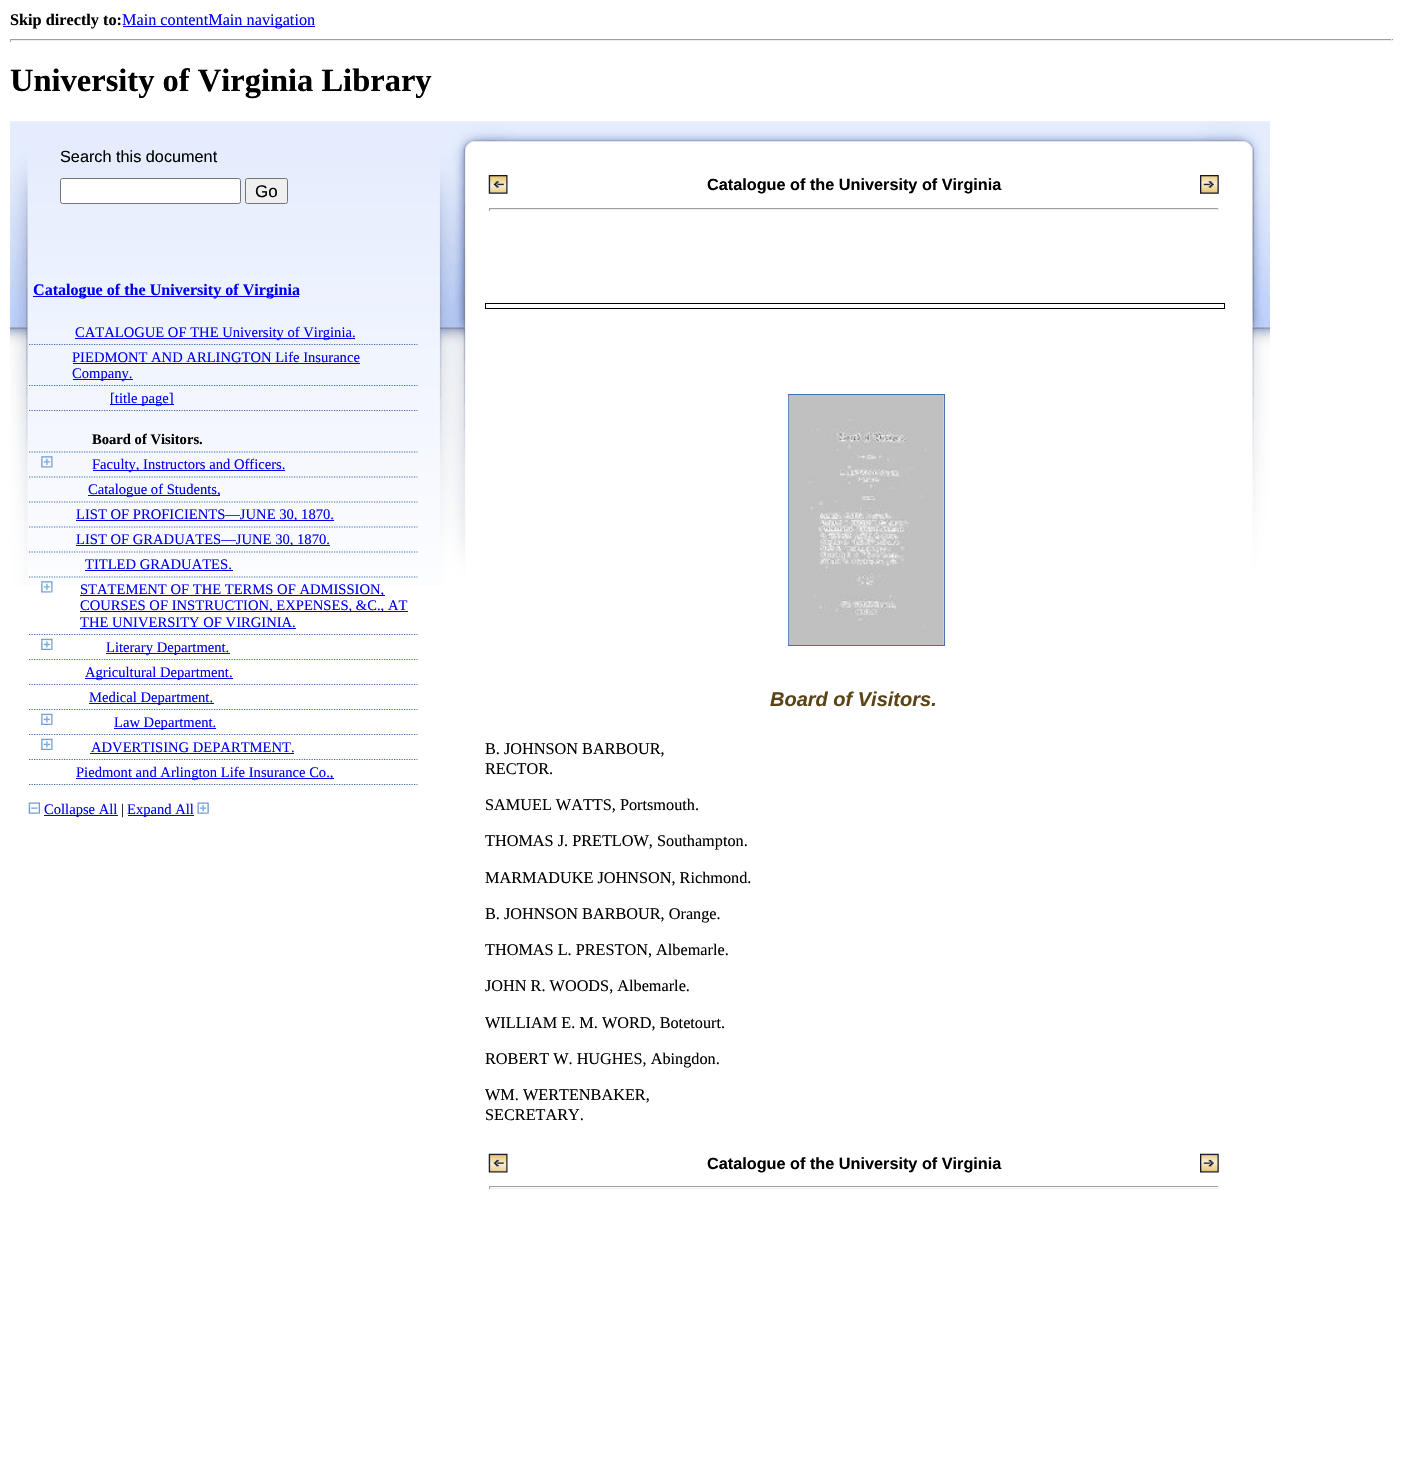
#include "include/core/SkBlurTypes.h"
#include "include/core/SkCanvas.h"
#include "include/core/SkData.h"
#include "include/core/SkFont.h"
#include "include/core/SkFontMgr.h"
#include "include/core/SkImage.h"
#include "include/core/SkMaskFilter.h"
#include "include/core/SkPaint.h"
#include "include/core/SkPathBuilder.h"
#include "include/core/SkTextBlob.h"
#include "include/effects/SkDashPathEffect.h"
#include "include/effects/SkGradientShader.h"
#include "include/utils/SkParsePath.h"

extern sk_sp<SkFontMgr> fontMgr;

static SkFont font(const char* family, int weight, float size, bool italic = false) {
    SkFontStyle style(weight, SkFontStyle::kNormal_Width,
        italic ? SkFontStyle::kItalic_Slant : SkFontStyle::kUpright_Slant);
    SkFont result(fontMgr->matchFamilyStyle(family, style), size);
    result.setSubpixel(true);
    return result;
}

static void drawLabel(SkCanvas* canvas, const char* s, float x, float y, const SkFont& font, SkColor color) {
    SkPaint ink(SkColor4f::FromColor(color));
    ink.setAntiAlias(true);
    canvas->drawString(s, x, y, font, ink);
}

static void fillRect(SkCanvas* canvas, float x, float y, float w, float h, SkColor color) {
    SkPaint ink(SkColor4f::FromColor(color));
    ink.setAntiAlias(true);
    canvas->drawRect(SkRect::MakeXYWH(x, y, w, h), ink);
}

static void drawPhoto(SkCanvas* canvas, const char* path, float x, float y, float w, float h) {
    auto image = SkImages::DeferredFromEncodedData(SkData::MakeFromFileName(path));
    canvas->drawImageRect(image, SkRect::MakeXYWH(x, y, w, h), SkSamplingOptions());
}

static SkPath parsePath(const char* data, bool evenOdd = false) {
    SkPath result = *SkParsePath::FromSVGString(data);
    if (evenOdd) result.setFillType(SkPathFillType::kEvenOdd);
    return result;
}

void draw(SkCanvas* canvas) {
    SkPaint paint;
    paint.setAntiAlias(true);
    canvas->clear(0xFFFFFFFF);
    SkFont font1 = font("Liberation Serif", 700, 16.25f);
    drawLabel(canvas, "Skip directly to:", 10, 25, font1, 0xFF000000);
    fillRect(canvas, 123, 26, 192, 1, 0xFF0000EE);
    SkFont font2 = font("Liberation Serif", 400, 16.25f);
    drawLabel(canvas, "Main contentMain navigation", 122, 25, font2, 0xFF0000EE);
    fillRect(canvas, 10, 39, 1383, 1, 0xFF9F9F9F);
    fillRect(canvas, 1391, 39, 1, 3, 0xFFEEEEEE);
    fillRect(canvas, 10, 40, 1383, 1, 0xFFEEEEEE);
    fillRect(canvas, 10, 39, 1, 3, 0xFF9F9F9F);
    SkFont font3 = font("Liberation Serif", 700, 32.5f);
    drawLabel(canvas, "University of Virginia Library", 10, 91, font3, 0xFF000000);
    drawPhoto(canvas, "assets/img1.png", 10, 121, 1260, 465);
    SkFont font4 = font("Liberation Sans", 400, 16.25f);
    drawLabel(canvas, "Search this document", 60, 162, font4, 0xFF000000);
    paint.setColor(0xFFFFFFFF);
    canvas->drawRoundRect(SkRect::MakeXYWH(60.5f, 178.5f, 180, 25), 2, 2, paint);
    paint.setStroke(true);
    paint.setStrokeWidth(1);
    paint.setColor(0xFF767676);
    canvas->drawRoundRect(SkRect::MakeXYWH(60.5f, 178.5f, 180, 25), 2, 2, paint);
    paint.setStroke(false);
    paint.setColor(0xFFEFEFEF);
    canvas->drawRoundRect(SkRect::MakeXYWH(245.5f, 178.5f, 42, 25), 2, 2, paint);
    paint.setStroke(true);
    paint.setColor(0xFF767676);
    canvas->drawRoundRect(SkRect::MakeXYWH(245.5f, 178.5f, 42, 25), 2, 2, paint);
    SkFont font5 = font("Liberation Sans", 400, 17);
    drawLabel(canvas, "Go", 255, 197, font5, 0xFF000000);
    fillRect(canvas, 33, 296, 266, 1, 0xFF0000EE);
    SkFont font6 = font("Liberation Serif", 700, 16.1f);
    drawLabel(canvas, "Catalogue of the University of Virginia", 33, 295, font6, 0xFF0000EE);
    paint.setStrokeWidth(1.2f);
    paint.setColor(0xFF3F6DAD);
    paint.setPathEffect(SkDashPathEffect::Make({{1.25f, 1.25f}}, 0));
    canvas->drawPath(parsePath("M29 344.5H417.5"), paint);
    paint.setPathEffect(nullptr);
    fillRect(canvas, 75, 338, 280, 1, 0xFF0000EE);
    SkFont font7 = font("Liberation Serif", 400, 14.6f);
    drawLabel(canvas, "CATALOGUE OF THE University of Virginia.", 75, 337, font7, 0xFF0000EE);
    paint.setPathEffect(SkDashPathEffect::Make({{1.25f, 1.25f}}, 0));
    canvas->drawPath(parsePath("M29 385.5H417.5"), paint);
    paint.setPathEffect(nullptr);
    drawLabel(canvas, "PIEDMONT AND ARLINGTON Life Insurance", 72, 362, font7, 0xFF0000EE);
    fillRect(canvas, 73, 363, 287, 1, 0xFF0000EE);
    fillRect(canvas, 73, 379, 60, 1, 0xFF0000EE);
    drawLabel(canvas, "Company.", 72, 378, font7, 0xFF0000EE);
    paint.setPathEffect(SkDashPathEffect::Make({{1.25f, 1.25f}}, 0));
    canvas->drawPath(parsePath("M29 410.5H417.5"), paint);
    paint.setPathEffect(nullptr);
    fillRect(canvas, 110, 404, 64, 1, 0xFF0000EE);
    drawLabel(canvas, "[title page]", 110, 403, font7, 0xFF0000EE);
    paint.setPathEffect(SkDashPathEffect::Make({{1.25f, 1.25f}}, 0));
    canvas->drawPath(parsePath("M29 452H417.5"), paint);
    paint.setPathEffect(nullptr);
    SkFont font8 = font("Liberation Serif", 700, 14.6f);
    drawLabel(canvas, "Board of Visitors.", 92, 444, font8, 0xFF000000);
    paint.setPathEffect(SkDashPathEffect::Make({{1.25f, 1.25f}}, 0));
    canvas->drawPath(parsePath("M29 477H417.5"), paint);
    paint.setPathEffect(nullptr);
    drawPhoto(canvas, "assets/img2.png", 41, 456, 12, 12);
    fillRect(canvas, 93, 470, 192, 1, 0xFF0000EE);
    drawLabel(canvas, "Faculty, Instructors and Officers.", 92, 469, font7, 0xFF0000EE);
    paint.setPathEffect(SkDashPathEffect::Make({{1.25f, 1.25f}}, 0));
    canvas->drawPath(parsePath("M29 502H417.5"), paint);
    paint.setPathEffect(nullptr);
    fillRect(canvas, 88, 495, 132, 1, 0xFF0000EE);
    drawLabel(canvas, "Catalogue of Students,", 88, 494, font7, 0xFF0000EE);
    paint.setPathEffect(SkDashPathEffect::Make({{1.25f, 1.25f}}, 0));
    canvas->drawPath(parsePath("M29 527H417.5"), paint);
    paint.setPathEffect(nullptr);
    fillRect(canvas, 76, 520, 258, 1, 0xFF0000EE);
    drawLabel(canvas, "LIST OF PROFICIENTS—JUNE 30, 1870.", 76, 519, font7, 0xFF0000EE);
    paint.setPathEffect(SkDashPathEffect::Make({{1.25f, 1.25f}}, 0));
    canvas->drawPath(parsePath("M29 552H417.5"), paint);
    paint.setPathEffect(nullptr);
    fillRect(canvas, 76, 545, 254, 1, 0xFF0000EE);
    drawLabel(canvas, "LIST OF GRADUATES—JUNE 30, 1870.", 76, 544, font7, 0xFF0000EE);
    paint.setPathEffect(SkDashPathEffect::Make({{1.25f, 1.25f}}, 0));
    canvas->drawPath(parsePath("M29 577H417.5"), paint);
    paint.setPathEffect(nullptr);
    drawLabel(canvas, "TITLED GRADUATES.", 85, 569, font7, 0xFF0000EE);
    fillRect(canvas, 85, 570, 148, 1, 0xFF0000EE);
    paint.setPathEffect(SkDashPathEffect::Make({{1.25f, 1.25f}}, 0));
    canvas->drawPath(parsePath("M29 634.5H417.5"), paint);
    paint.setPathEffect(nullptr);
    drawPhoto(canvas, "assets/img3.png", 41, 581, 12, 12);
    fillRect(canvas, 80, 595, 305, 1, 0xFF0000EE);
    drawLabel(canvas, "STATEMENT OF THE TERMS OF ADMISSION,", 80, 594, font7, 0xFF0000EE);
    fillRect(canvas, 80, 611, 328, 1, 0xFF0000EE);
    drawLabel(canvas, "COURSES OF INSTRUCTION, EXPENSES, &C.,", 80, 610, font7, 0xFF0000EE);
    drawLabel(canvas, "AT", 388, 610, font7, 0xFF0000EE);
    drawLabel(canvas, "THE UNIVERSITY OF VIRGINIA.", 80, 627, font7, 0xFF0000EE);
    fillRect(canvas, 80, 628, 216, 1, 0xFF0000EE);
    paint.setPathEffect(SkDashPathEffect::Make({{1.25f, 1.25f}}, 0));
    canvas->drawPath(parsePath("M29 659.5H417.5"), paint);
    paint.setPathEffect(nullptr);
    drawPhoto(canvas, "assets/img4.png", 41, 638, 12, 12);
    fillRect(canvas, 106, 653, 124, 1, 0xFF0000EE);
    drawLabel(canvas, "Literary Department.", 106, 652, font7, 0xFF0000EE);
    paint.setPathEffect(SkDashPathEffect::Make({{1.25f, 1.25f}}, 0));
    canvas->drawPath(parsePath("M29 684.5H417.5"), paint);
    paint.setPathEffect(nullptr);
    fillRect(canvas, 85, 678, 148, 1, 0xFF0000EE);
    drawLabel(canvas, "Agricultural Department.", 85, 677, font7, 0xFF0000EE);
    paint.setPathEffect(SkDashPathEffect::Make({{1.25f, 1.25f}}, 0));
    canvas->drawPath(parsePath("M29 709.5H417.5"), paint);
    paint.setPathEffect(nullptr);
    fillRect(canvas, 89, 703, 125, 1, 0xFF0000EE);
    drawLabel(canvas, "Medical Department.", 89, 702, font7, 0xFF0000EE);
    paint.setPathEffect(SkDashPathEffect::Make({{1.25f, 1.25f}}, 0));
    canvas->drawPath(parsePath("M29 734.5H417.5"), paint);
    paint.setPathEffect(nullptr);
    drawPhoto(canvas, "assets/img4.png", 41, 713, 12, 12);
    fillRect(canvas, 114, 728, 102, 1, 0xFF0000EE);
    drawLabel(canvas, "Law Department.", 114, 727, font7, 0xFF0000EE);
    paint.setPathEffect(SkDashPathEffect::Make({{1.25f, 1.25f}}, 0));
    canvas->drawPath(parsePath("M29 759.5H417.5"), paint);
    paint.setPathEffect(nullptr);
    drawPhoto(canvas, "assets/img4.png", 41, 738, 12, 12);
    drawLabel(canvas, "ADVERTISING DEPARTMENT.", 91, 752, font7, 0xFF0000EE);
    fillRect(canvas, 90, 753, 204, 1, 0xFF0000EE);
    paint.setPathEffect(SkDashPathEffect::Make({{1.25f, 1.25f}}, 0));
    canvas->drawPath(parsePath("M29 784.5H417.5"), paint);
    paint.setPathEffect(nullptr);
    fillRect(canvas, 76, 778, 258, 1, 0xFF0000EE);
    drawLabel(canvas, "Piedmont and Arlington Life Insurance Co.,", 76, 777, font7, 0xFF0000EE);
    drawPhoto(canvas, "assets/img5.png", 28, 802, 12, 12);
    fillRect(canvas, 44, 815, 74, 1, 0xFF0000EE);
    drawLabel(canvas, "Collapse All", 44, 814, font7, 0xFF0000EE);
    drawLabel(canvas, "|", 121, 814, font7, 0xFF000000);
    fillRect(canvas, 128, 815, 66, 1, 0xFF0000EE);
    drawLabel(canvas, "Expand All", 127, 814, font7, 0xFF0000EE);
    drawPhoto(canvas, "assets/img6.png", 197, 802, 12, 12);
    drawPhoto(canvas, "assets/img7.png", 488, 175, 20, 19);
    SkFont font9 = font("Liberation Sans", 700, 16.25f);
    drawLabel(canvas, "Catalogue of the University of Virginia", 707, 190, font9, 0xFF000000);
    drawPhoto(canvas, "assets/img8.png", 1200, 175, 19, 19);
    fillRect(canvas, 489, 208, 730, 1, 0xFF9F9F9F);
    fillRect(canvas, 1218, 208, 1, 3, 0xFFEEEEEE);
    fillRect(canvas, 489, 209, 730, 1, 0xFFEEEEEE);
    fillRect(canvas, 489, 208, 1, 3, 0xFF9F9F9F);
    paint.setStrokeWidth(1);
    paint.setColor(0xFF000000);
    canvas->drawRect(SkRect::MakeXYWH(485.5f, 303.5f, 739, 5), paint);
    paint.setColor(0xFF4672AF);
    canvas->drawRect(SkRect::MakeXYWH(788.5f, 394.5f, 156, 251), paint);
    drawPhoto(canvas, "assets/img9.png", 788, 395, 156, 250);
    SkFont font10 = font("Liberation Sans", 700, 20, true);
    drawLabel(canvas, "Board of Visitors.", 770, 706, font10, 0xFF5B4418);
    drawLabel(canvas, "B. JOHNSON BARBOUR,", 485, 754, font2, 0xFF000000);
    drawLabel(canvas, "RECTOR.", 485, 774, font2, 0xFF000000);
    drawLabel(canvas, "SAMUEL WATTS, Portsmouth.", 485, 810, font2, 0xFF000000);
    drawLabel(canvas, "THOMAS J. PRETLOW, Southampton.", 485, 846, font2, 0xFF000000);
    drawLabel(canvas, "MARMADUKE JOHNSON, Richmond.", 485, 883, font2, 0xFF000000);
    drawLabel(canvas, "B. JOHNSON BARBOUR, Orange.", 485, 919, font2, 0xFF000000);
    drawLabel(canvas, "THOMAS L. PRESTON, Albemarle.", 485, 955, font2, 0xFF000000);
    drawLabel(canvas, "JOHN R. WOODS, Albemarle.", 485, 991, font2, 0xFF000000);
    drawLabel(canvas, "WILLIAM E. M. WORD, Botetourt.", 485, 1028, font2, 0xFF000000);
    drawLabel(canvas, "ROBERT W. HUGHES, Abingdon.", 485, 1064, font2, 0xFF000000);
    drawLabel(canvas, "WM. WERTENBAKER,", 485, 1100, font2, 0xFF000000);
    drawLabel(canvas, "SECRETARY.", 485, 1120, font2, 0xFF000000);
    drawPhoto(canvas, "assets/img10.png", 488, 1153, 20, 20);
    drawLabel(canvas, "Catalogue of the University of Virginia", 707, 1169, font9, 0xFF000000);
    drawPhoto(canvas, "assets/img11.png", 1200, 1153, 19, 20);
    fillRect(canvas, 489, 1186, 730, 1, 0xFF9F9F9F);
    fillRect(canvas, 1218, 1186, 1, 3, 0xFFEEEEEE);
    fillRect(canvas, 489, 1188, 730, 1, 0xFFEEEEEE);
    fillRect(canvas, 489, 1186, 1, 3, 0xFF9F9F9F);
}
